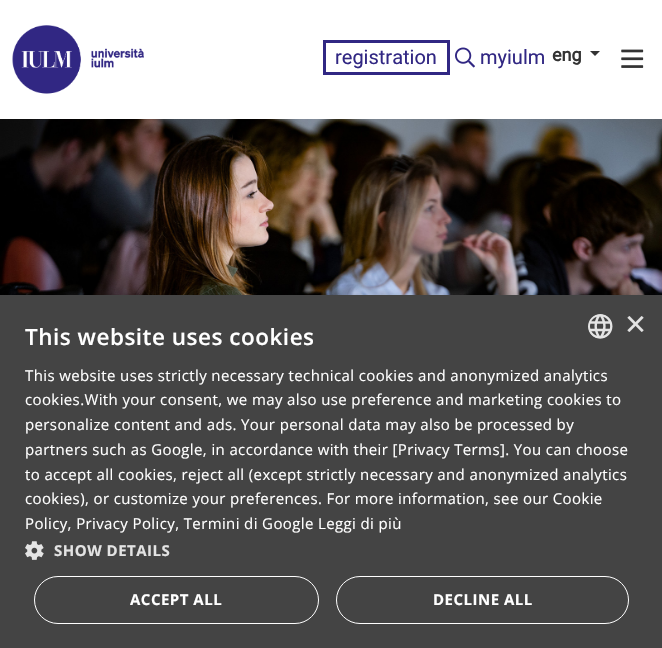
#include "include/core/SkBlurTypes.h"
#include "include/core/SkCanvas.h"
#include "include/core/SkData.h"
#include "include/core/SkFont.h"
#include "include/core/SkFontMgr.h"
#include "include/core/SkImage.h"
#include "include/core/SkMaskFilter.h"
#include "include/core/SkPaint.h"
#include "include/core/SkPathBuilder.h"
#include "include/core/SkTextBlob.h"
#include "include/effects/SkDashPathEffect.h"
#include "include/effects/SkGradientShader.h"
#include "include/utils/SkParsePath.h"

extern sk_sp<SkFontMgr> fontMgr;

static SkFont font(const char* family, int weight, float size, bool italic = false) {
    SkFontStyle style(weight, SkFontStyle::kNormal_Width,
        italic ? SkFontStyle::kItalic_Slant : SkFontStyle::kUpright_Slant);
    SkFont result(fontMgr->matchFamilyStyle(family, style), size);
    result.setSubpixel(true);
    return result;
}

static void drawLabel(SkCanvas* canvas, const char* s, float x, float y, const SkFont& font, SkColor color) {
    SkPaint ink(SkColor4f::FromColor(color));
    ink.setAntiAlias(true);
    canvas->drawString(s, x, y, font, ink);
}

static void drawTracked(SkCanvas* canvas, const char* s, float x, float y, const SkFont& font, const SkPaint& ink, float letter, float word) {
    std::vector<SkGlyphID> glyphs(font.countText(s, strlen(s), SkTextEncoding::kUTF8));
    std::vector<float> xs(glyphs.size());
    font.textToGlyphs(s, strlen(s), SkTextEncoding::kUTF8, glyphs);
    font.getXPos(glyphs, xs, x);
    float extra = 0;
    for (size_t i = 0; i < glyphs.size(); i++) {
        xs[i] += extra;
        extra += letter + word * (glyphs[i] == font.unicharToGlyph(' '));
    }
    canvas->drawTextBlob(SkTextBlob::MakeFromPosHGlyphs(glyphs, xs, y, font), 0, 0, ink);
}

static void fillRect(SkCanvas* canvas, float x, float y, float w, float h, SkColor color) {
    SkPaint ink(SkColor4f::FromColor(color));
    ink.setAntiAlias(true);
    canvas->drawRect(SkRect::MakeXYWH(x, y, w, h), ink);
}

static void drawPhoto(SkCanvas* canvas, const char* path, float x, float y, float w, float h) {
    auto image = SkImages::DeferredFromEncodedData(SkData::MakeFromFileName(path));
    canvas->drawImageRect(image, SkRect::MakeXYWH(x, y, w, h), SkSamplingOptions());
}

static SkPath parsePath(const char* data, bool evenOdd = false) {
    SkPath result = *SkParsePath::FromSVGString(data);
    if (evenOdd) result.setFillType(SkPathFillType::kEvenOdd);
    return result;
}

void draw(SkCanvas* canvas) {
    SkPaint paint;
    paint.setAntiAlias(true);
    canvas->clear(0xFFFFFFFF);
    drawPhoto(canvas, "assets/img1.png", 12, 25, 132, 69);
    paint.setStroke(true);
    paint.setStrokeWidth(3);
    paint.setColor(0xFF312783);
    canvas->drawRect(SkRect::MakeXYWH(324.5f, 41.5f, 124, 32), paint);
    SkFont font1 = font("Heebo", 400, 20);
    drawLabel(canvas, "registration", 335, 64, font1, 0xFF312783);
    drawPhoto(canvas, "assets/img2.png", 455, 47, 20, 21);
    drawLabel(canvas, "myiulm", 480, 64, font1, 0xFF312783);
    SkFont font2 = font("Heebo", 700, 18);
    drawLabel(canvas, "eng", 552, 61, font2, 0xFF333333);
    paint.setStroke(false);
    paint.setColor(0xFF333333);
    canvas->drawPath(parsePath("M590 51H600L595 56Z"), paint);
    drawPhoto(canvas, "assets/img3.png", 621, 49, 23, 19);
    drawPhoto(canvas, "assets/img4.png", 0, 119, 662, 176);
    paint.setColor(0x59000000);
    paint.setMaskFilter(SkMaskFilter::MakeBlur(kNormal_SkBlurStyle, 5));
    canvas->drawRect(SkRect::MakeXYWH(1, 298, 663, 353), paint);
    paint.setMaskFilter(nullptr);
    fillRect(canvas, 0, 295, 662, 353, 0xFF444444);
    drawPhoto(canvas, "assets/img5.png", 588, 314, 25, 25);
    SkFont font3 = font("Liberation Sans", 400, 36);
    drawLabel(canvas, "×", 625, 336, font3, 0xFFE3E3E3);
    SkFont font4 = font("Open Sans", 600, 22.5f);
    paint.setColor(0xFFFFFFFF);
    drawTracked(canvas, "This website uses cookies", 25, 345, font4, paint, 0.5f, 0);
    SkFont font5 = font("Open Sans", 400, 15);
    drawTracked(canvas, "This website uses strictly necessary technical cookies and anonymized analytics", 25, 381, font5, paint, 0.38f, 0);
    drawTracked(canvas, "cookies.With your consent, we may also use preference and marketing cookies to", 25, 405, font5, paint, 0.38f, 0);
    drawTracked(canvas, "personalize content and ads. Your personal data may also be processed by", 25, 430, font5, paint, 0.38f, 0);
    drawTracked(canvas, "partners such as Google, in accordance with their [Privacy Terms]. You can choose", 25, 455, font5, paint, 0.38f, 0);
    drawTracked(canvas, "to accept all cookies, reject all (except strictly necessary and anonymized analytics", 25, 480, font5, paint, 0.38f, 0);
    drawTracked(canvas, "cookies), or customize your preferences. For more information, see our Cookie", 25, 504, font5, paint, 0.38f, 0);
    drawTracked(canvas, "Policy, Privacy Policy, Termini di Google Leggi di più", 25, 529, font5, paint, 0.38f, 0);
    drawPhoto(canvas, "assets/img6.png", 25, 541, 19, 19);
    SkFont font6 = font("Open Sans", 700, 15);
    paint.setColor(0xFFE3E3E3);
    drawTracked(canvas, "SHOW DETAILS", 54, 556, font6, paint, 0.5f, 0);
    paint.setStroke(true);
    paint.setStrokeWidth(1);
    paint.setColor(0xFFFFFFFF);
    canvas->drawRoundRect(SkRect::MakeXYWH(34.5f, 576.5f, 284, 47), 23.5f, 23.5f, paint);
    paint.setStroke(false);
    drawTracked(canvas, "ACCEPT ALL", 130, 605, font6, paint, 0.5f, 0);
    paint.setStroke(true);
    canvas->drawRoundRect(SkRect::MakeXYWH(336.5f, 576.5f, 292, 47), 23.5f, 23.5f, paint);
    paint.setStroke(false);
    drawTracked(canvas, "DECLINE ALL", 433, 605, font6, paint, 0.5f, 0);
}
